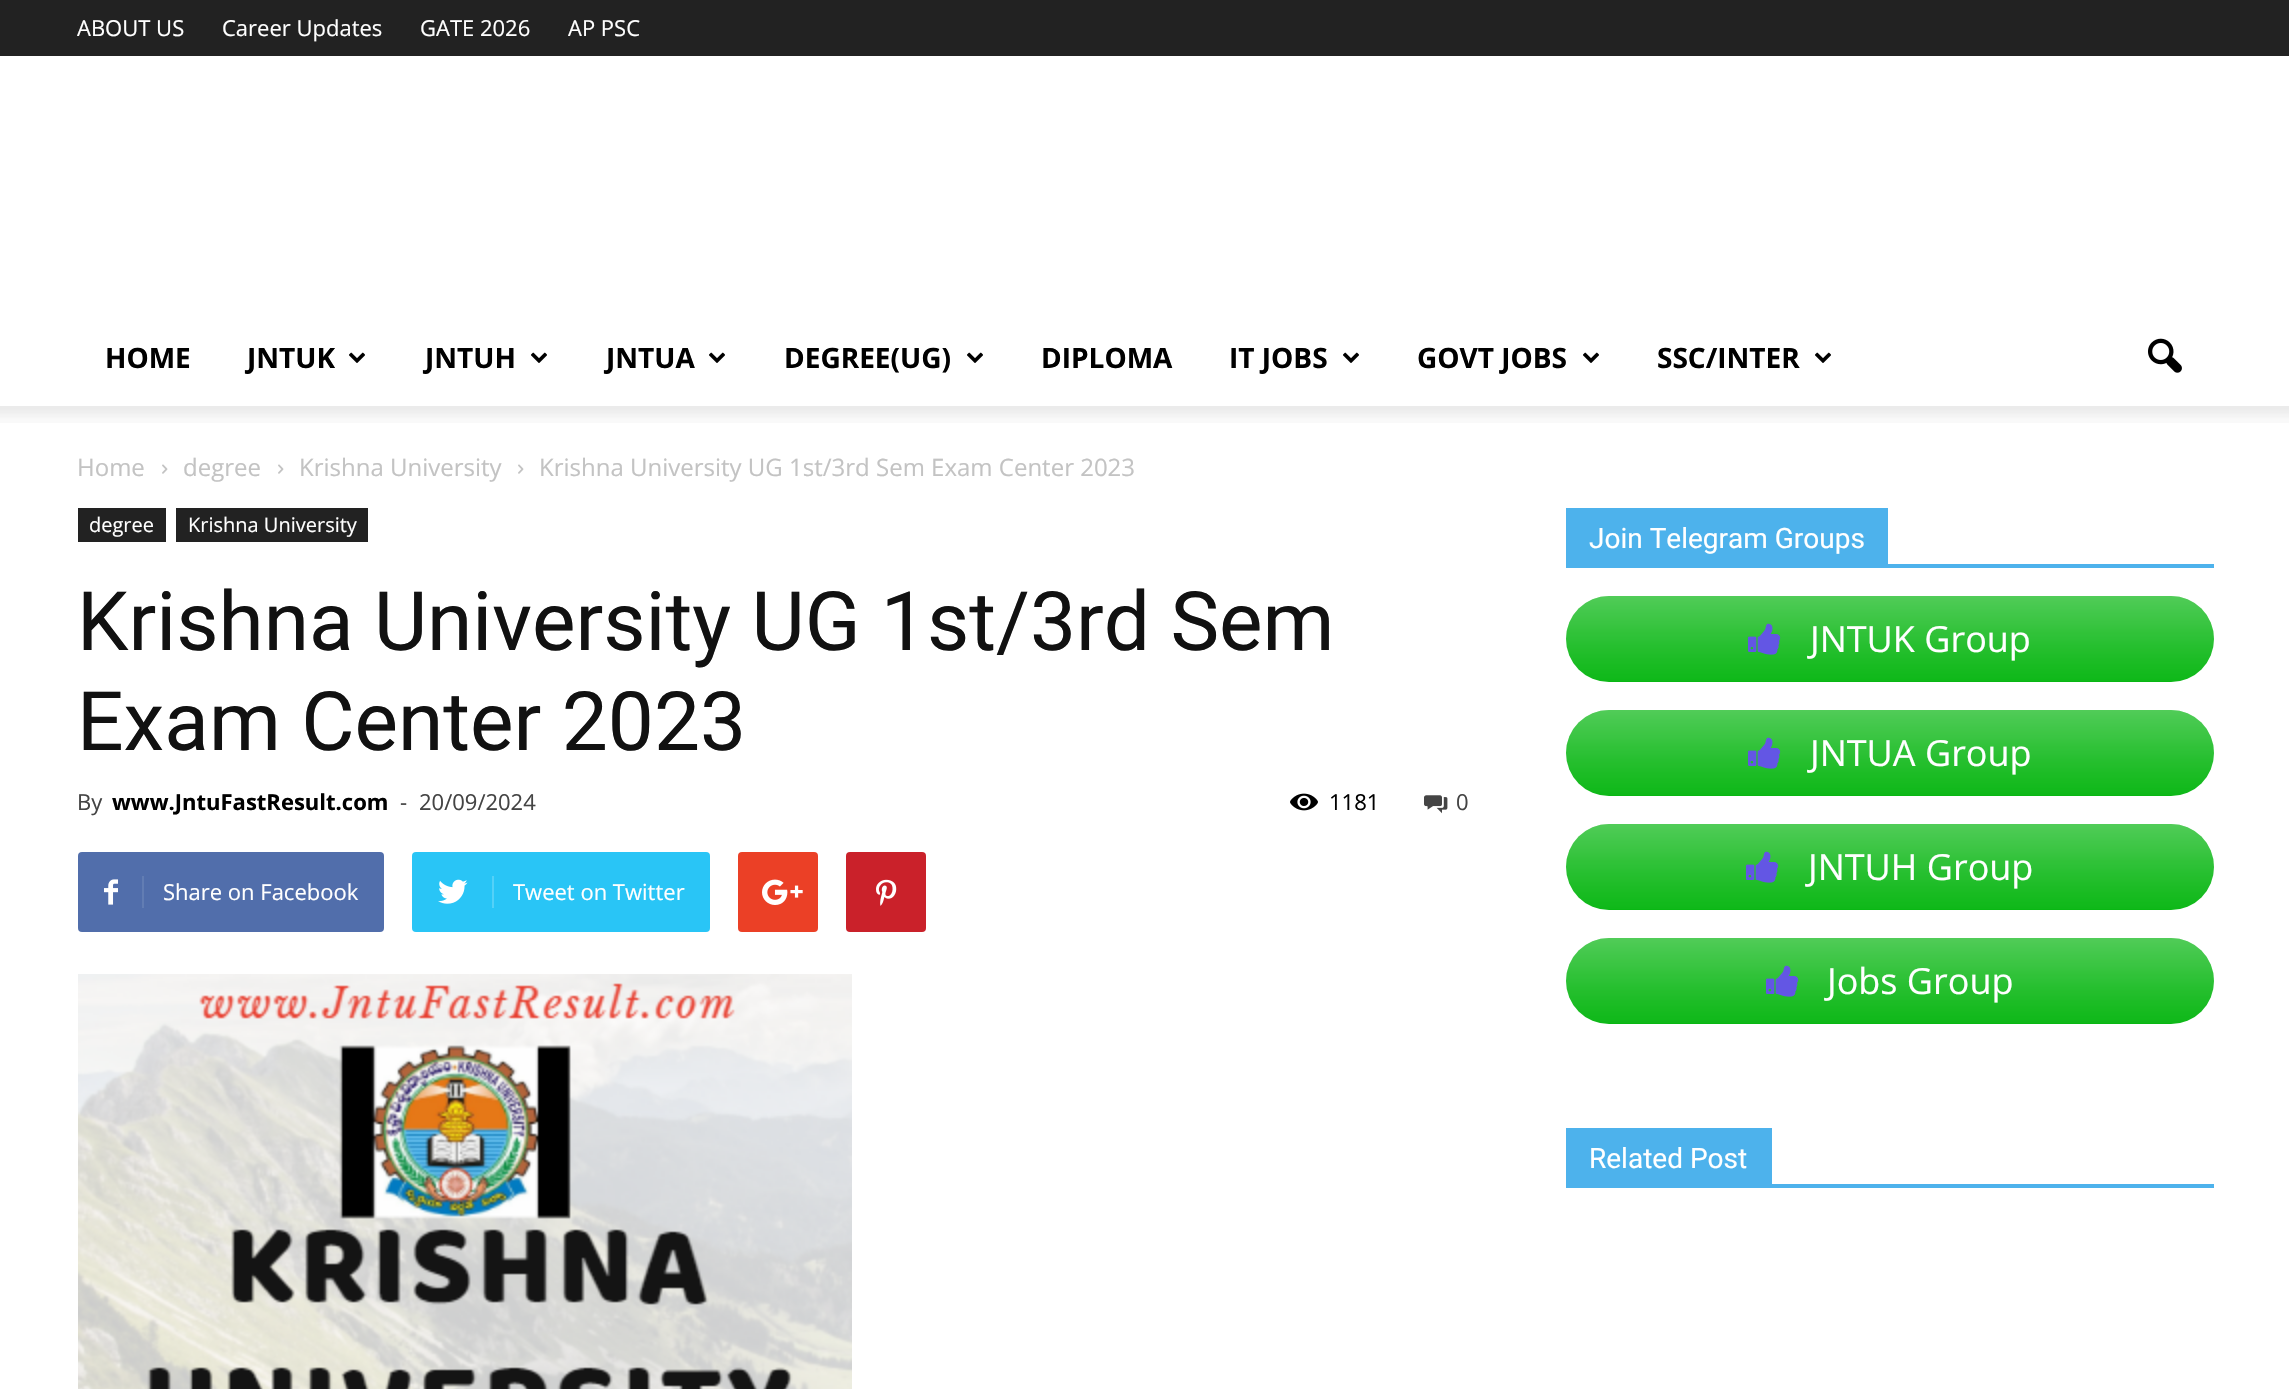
#include "include/core/SkBlurTypes.h"
#include "include/core/SkCanvas.h"
#include "include/core/SkData.h"
#include "include/core/SkFont.h"
#include "include/core/SkFontMgr.h"
#include "include/core/SkImage.h"
#include "include/core/SkMaskFilter.h"
#include "include/core/SkPaint.h"
#include "include/core/SkPathBuilder.h"
#include "include/core/SkTextBlob.h"
#include "include/effects/SkDashPathEffect.h"
#include "include/effects/SkGradientShader.h"
#include "include/utils/SkParsePath.h"

extern sk_sp<SkFontMgr> fontMgr;

static SkFont font(const char* family, int weight, float size, bool italic = false) {
    SkFontStyle style(weight, SkFontStyle::kNormal_Width,
        italic ? SkFontStyle::kItalic_Slant : SkFontStyle::kUpright_Slant);
    SkFont result(fontMgr->matchFamilyStyle(family, style), size);
    result.setSubpixel(true);
    return result;
}

static void drawLabel(SkCanvas* canvas, const char* s, float x, float y, const SkFont& font, SkColor color) {
    SkPaint ink(SkColor4f::FromColor(color));
    ink.setAntiAlias(true);
    canvas->drawString(s, x, y, font, ink);
}

static void fillRect(SkCanvas* canvas, float x, float y, float w, float h, SkColor color) {
    SkPaint ink(SkColor4f::FromColor(color));
    ink.setAntiAlias(true);
    canvas->drawRect(SkRect::MakeXYWH(x, y, w, h), ink);
}

static void fillRRect(SkCanvas* canvas, float x, float y, float w, float h, float radius, SkColor color) {
    SkPaint ink(SkColor4f::FromColor(color));
    ink.setAntiAlias(true);
    canvas->drawRoundRect(SkRect::MakeXYWH(x, y, w, h), radius, radius, ink);
}

static void drawPhoto(SkCanvas* canvas, const char* path, float x, float y, float w, float h) {
    auto image = SkImages::DeferredFromEncodedData(SkData::MakeFromFileName(path));
    canvas->drawImageRect(image, SkRect::MakeXYWH(x, y, w, h), SkSamplingOptions());
}

void draw(SkCanvas* canvas) {
    SkPaint paint;
    paint.setAntiAlias(true);
    canvas->clear(0xFFFFFFFF);
    fillRect(canvas, 0, 0, 2289, 56, 0xFF222222);
    SkFont font1 = font("Open Sans", 400, 22);
    drawLabel(canvas, "ABOUT US", 77, 36, font1, 0xFFFFFFFF);
    drawLabel(canvas, "Career Updates", 222, 36, font1, 0xFFFFFFFF);
    drawLabel(canvas, "GATE 2026", 420, 36, font1, 0xFFFFFFFF);
    drawLabel(canvas, "AP PSC", 568, 36, font1, 0xFFFFFFFF);
    SkFont font2 = font("Open Sans", 700, 28);
    drawLabel(canvas, "HOME", 105, 368, font2, 0xFF000000);
    drawLabel(canvas, "JNTUK", 247, 368, font2, 0xFF000000);
    drawPhoto(canvas, "assets/img1.png", 349, 352, 16, 11);
    drawLabel(canvas, "JNTUH", 425, 368, font2, 0xFF000000);
    drawPhoto(canvas, "assets/img1.png", 531, 352, 16, 11);
    drawLabel(canvas, "JNTUA", 606, 368, font2, 0xFF000000);
    drawPhoto(canvas, "assets/img1.png", 709, 352, 16, 11);
    drawLabel(canvas, "DEGREE(UG)", 784, 368, font2, 0xFF000000);
    drawPhoto(canvas, "assets/img1.png", 967, 352, 16, 11);
    drawLabel(canvas, "DIPLOMA", 1041, 368, font2, 0xFF000000);
    drawLabel(canvas, "IT JOBS", 1229, 368, font2, 0xFF000000);
    drawPhoto(canvas, "assets/img1.png", 1343, 352, 16, 11);
    drawLabel(canvas, "GOVT JOBS", 1417, 368, font2, 0xFF000000);
    drawPhoto(canvas, "assets/img1.png", 1583, 352, 16, 11);
    drawLabel(canvas, "SSC/INTER", 1657, 368, font2, 0xFF000000);
    drawPhoto(canvas, "assets/img1.png", 1815, 352, 16, 11);
    drawPhoto(canvas, "assets/img2.png", 2148, 338, 34, 35);
    drawPhoto(canvas, "assets/img3.png", 0, 406, 2289, 17);
    SkFont font3 = font("Open Sans", 400, 24);
    drawLabel(canvas, "Home", 77, 476, font3, 0xFFC3C3C3);
    drawPhoto(canvas, "assets/img4.png", 162, 464, 6, 10);
    drawLabel(canvas, "degree", 183, 476, font3, 0xFFC3C3C3);
    drawPhoto(canvas, "assets/img4.png", 278, 464, 6, 10);
    drawLabel(canvas, "Krishna University", 299, 476, font3, 0xFFC3C3C3);
    drawPhoto(canvas, "assets/img4.png", 518, 464, 6, 10);
    drawLabel(canvas, "Krishna University UG 1st/3rd Sem Exam Center 2023", 539, 476, font3, 0xFFC3C3C3);
    fillRect(canvas, 78, 508, 88, 34, 0xFF222222);
    SkFont font4 = font("Open Sans", 400, 20);
    drawLabel(canvas, "degree", 89, 532, font4, 0xFFFFFFFF);
    fillRect(canvas, 176, 508, 192, 34, 0xFF222222);
    drawLabel(canvas, "Krishna University", 188, 532, font4, 0xFFFFFFFF);
    SkFont font5 = font("Roboto", 400, 82);
    drawLabel(canvas, "Krishna University UG 1st/3rd Sem", 77, 650, font5, 0xFF111111);
    drawLabel(canvas, "Exam Center 2023", 77, 750, font5, 0xFF111111);
    drawLabel(canvas, "By", 77, 810, font1, 0xFF444444);
    SkFont font6 = font("Open Sans", 700, 22);
    drawLabel(canvas, "www.JntuFastResult.com", 112, 810, font6, 0xFF000000);
    drawLabel(canvas, "-", 400, 810, font1, 0xFF444444);
    drawLabel(canvas, "20/09/2024", 419, 810, font1, 0xFF444444);
    drawPhoto(canvas, "assets/img5.png", 1290, 793, 28, 18);
    drawLabel(canvas, "1181", 1329, 810, font1, 0xFF000000);
    drawPhoto(canvas, "assets/img6.png", 1424, 795, 24, 19);
    drawLabel(canvas, "0", 1456, 810, font1, 0xFF444444);
    fillRRect(canvas, 78, 852, 306, 80, 4, 0xFF516EAB);
    drawPhoto(canvas, "assets/img7.png", 104, 879, 14, 26);
    fillRect(canvas, 142, 876, 2, 32, 0xFF627DB3);
    drawLabel(canvas, "Share on Facebook", 163, 900, font1, 0xFFFFFFFF);
    fillRRect(canvas, 412, 852, 298, 80, 4, 0xFF29C5F6);
    drawPhoto(canvas, "assets/img8.png", 438, 879, 30, 25);
    fillRect(canvas, 492, 876, 2, 32, 0xFF54D1F8);
    drawLabel(canvas, "Tweet on Twitter", 513, 900, font1, 0xFFFFFFFF);
    fillRRect(canvas, 738, 852, 80, 80, 4, 0xFFEB4026);
    drawPhoto(canvas, "assets/img9.png", 762, 879, 41, 26);
    fillRRect(canvas, 846, 852, 80, 80, 4, 0xFFCA212A);
    drawPhoto(canvas, "assets/img10.png", 876, 879, 21, 27);
    drawPhoto(canvas, "assets/img11.png", 78, 974, 774, 415);
    fillRect(canvas, 1566, 564, 648, 4, 0xFF4DB2EC);
    fillRect(canvas, 1566, 508, 322, 56, 0xFF4DB2EC);
    SkFont font7 = font("Roboto", 400, 28);
    drawLabel(canvas, "Join Telegram Groups", 1589, 548, font7, 0xFFFFFFFF);
    fillRRect(canvas, 1566, 596, 648, 86, 43, 0xFF09B713);
    drawPhoto(canvas, "assets/img12.png", 1566, 596, 648, 85);
    drawPhoto(canvas, "assets/img13.png", 1748, 623, 33, 32);
    SkFont font8 = font("Open Sans", 400, 36);
    drawLabel(canvas, "JNTUK Group", 1810, 652, font8, 0xFFFFFFFF);
    fillRRect(canvas, 1566, 710, 648, 86, 43, 0xFF09B713);
    drawPhoto(canvas, "assets/img12.png", 1566, 710, 648, 85);
    drawPhoto(canvas, "assets/img13.png", 1748, 737, 33, 32);
    drawLabel(canvas, "JNTUA Group", 1810, 766, font8, 0xFFFFFFFF);
    fillRRect(canvas, 1566, 824, 648, 86, 43, 0xFF09B713);
    drawPhoto(canvas, "assets/img14.png", 1566, 824, 648, 85);
    drawPhoto(canvas, "assets/img13.png", 1746, 851, 33, 32);
    drawLabel(canvas, "JNTUH Group", 1808, 880, font8, 0xFFFFFFFF);
    fillRRect(canvas, 1566, 938, 648, 86, 43, 0xFF09B713);
    drawPhoto(canvas, "assets/img12.png", 1566, 938, 648, 85);
    drawPhoto(canvas, "assets/img13.png", 1766, 965, 33, 32);
    drawLabel(canvas, "Jobs Group", 1827, 994, font8, 0xFFFFFFFF);
    fillRect(canvas, 1566, 1184, 648, 4, 0xFF4DB2EC);
    fillRect(canvas, 1566, 1128, 206, 56, 0xFF4DB2EC);
    drawLabel(canvas, "Related Post", 1589, 1168, font7, 0xFFFFFFFF);
}
